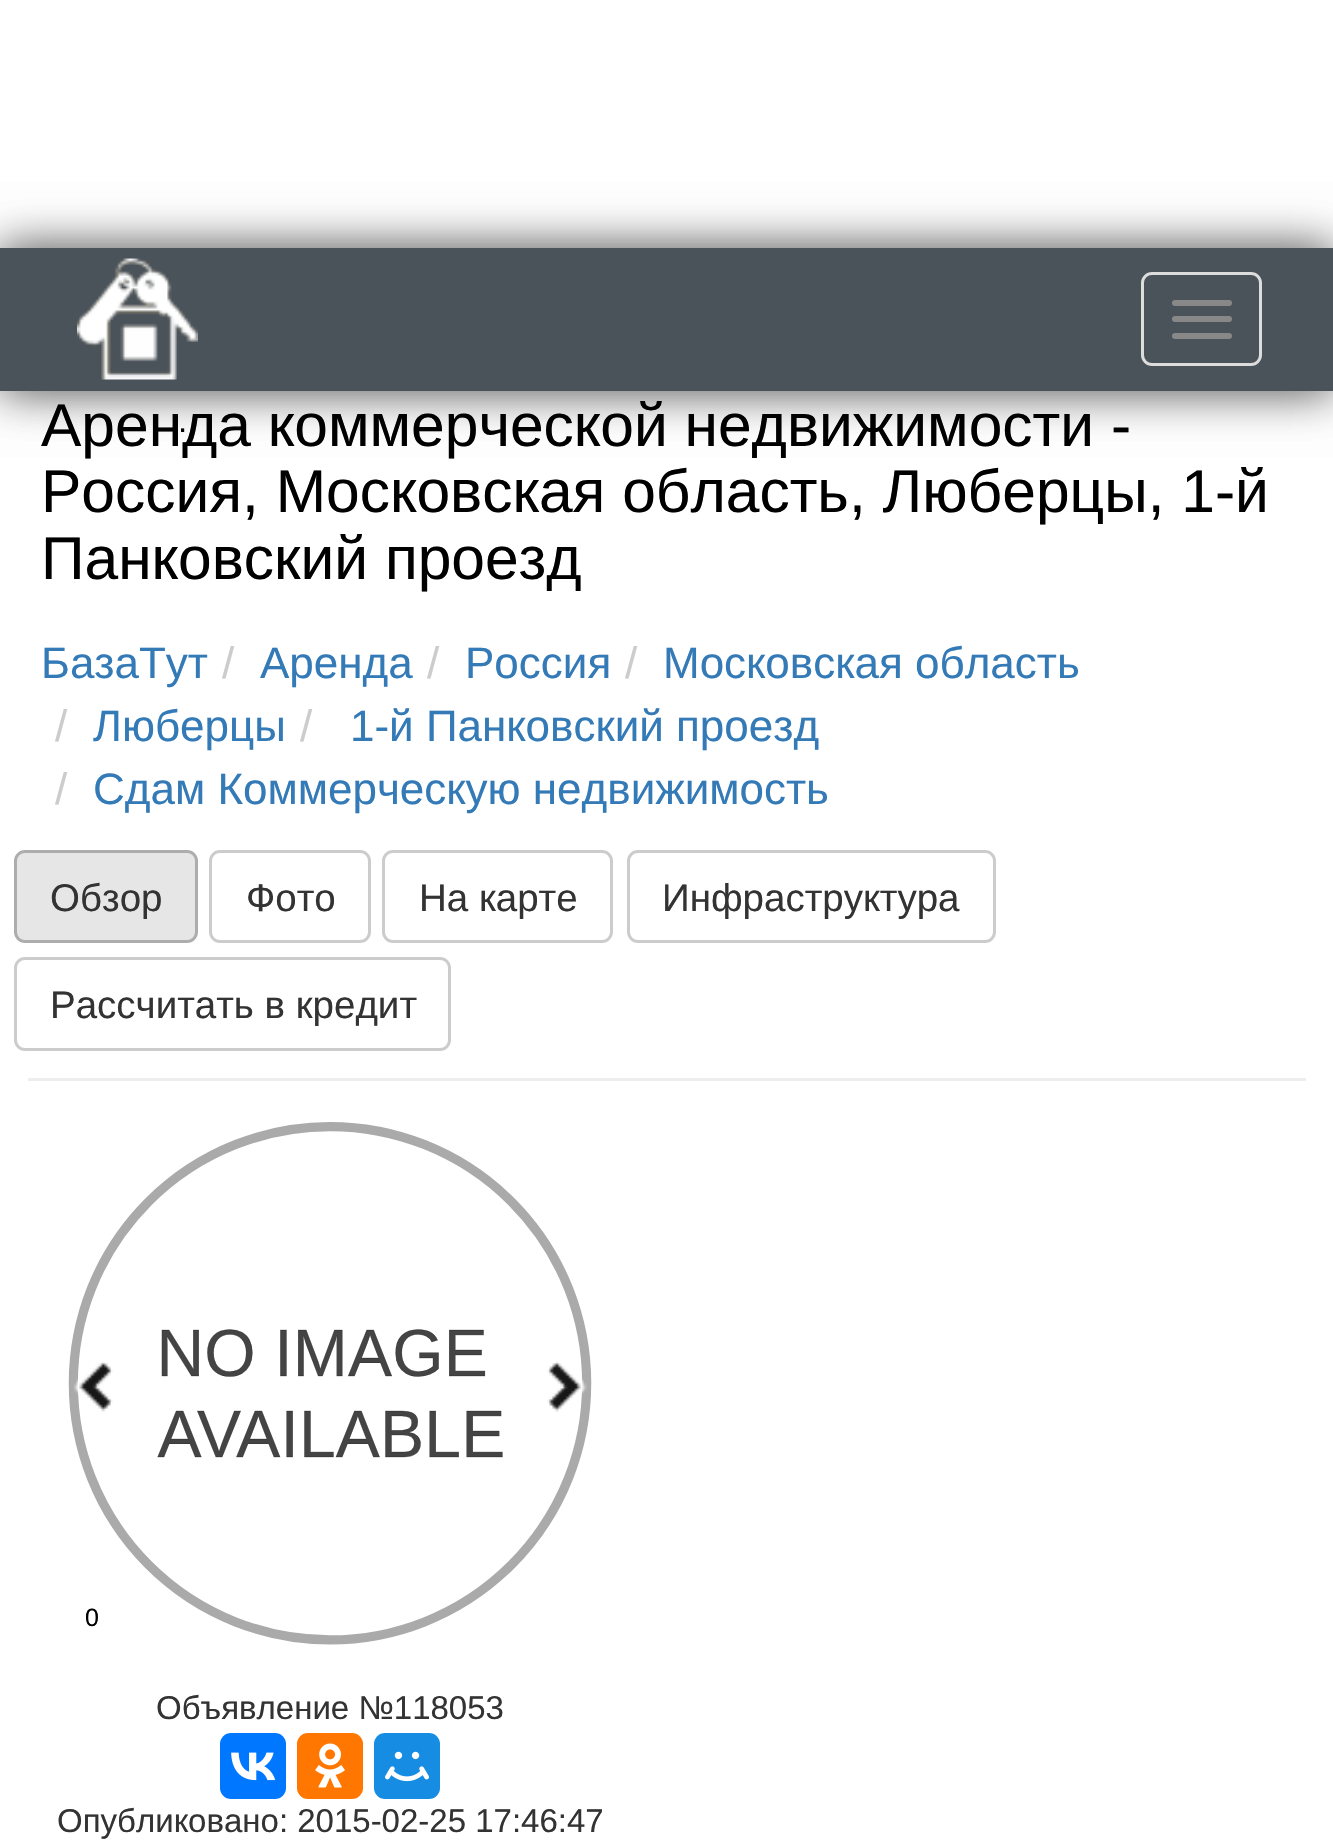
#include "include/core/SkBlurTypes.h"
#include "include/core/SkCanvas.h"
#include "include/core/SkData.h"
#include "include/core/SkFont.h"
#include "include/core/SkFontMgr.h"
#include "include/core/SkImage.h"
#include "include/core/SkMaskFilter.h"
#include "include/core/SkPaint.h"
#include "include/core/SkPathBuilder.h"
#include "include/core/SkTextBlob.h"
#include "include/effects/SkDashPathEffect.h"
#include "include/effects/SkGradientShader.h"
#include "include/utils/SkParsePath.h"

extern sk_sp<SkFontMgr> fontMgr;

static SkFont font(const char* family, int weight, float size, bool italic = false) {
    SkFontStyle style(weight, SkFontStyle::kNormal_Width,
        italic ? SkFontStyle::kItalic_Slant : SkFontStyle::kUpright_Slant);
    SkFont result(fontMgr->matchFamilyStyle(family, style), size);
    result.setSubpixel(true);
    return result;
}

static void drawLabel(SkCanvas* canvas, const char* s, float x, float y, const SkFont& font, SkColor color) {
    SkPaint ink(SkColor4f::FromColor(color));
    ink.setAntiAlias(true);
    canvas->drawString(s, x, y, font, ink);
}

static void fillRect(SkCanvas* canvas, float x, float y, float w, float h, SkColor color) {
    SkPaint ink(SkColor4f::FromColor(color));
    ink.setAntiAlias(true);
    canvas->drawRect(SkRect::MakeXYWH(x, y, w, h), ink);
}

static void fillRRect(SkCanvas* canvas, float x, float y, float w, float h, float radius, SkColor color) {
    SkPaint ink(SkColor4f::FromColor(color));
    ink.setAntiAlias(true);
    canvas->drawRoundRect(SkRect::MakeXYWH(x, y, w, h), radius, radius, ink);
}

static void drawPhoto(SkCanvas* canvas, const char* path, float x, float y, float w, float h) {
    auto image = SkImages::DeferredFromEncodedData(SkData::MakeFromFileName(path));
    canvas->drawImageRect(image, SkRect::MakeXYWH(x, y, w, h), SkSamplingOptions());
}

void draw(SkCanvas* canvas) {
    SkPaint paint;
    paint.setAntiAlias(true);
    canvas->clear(0xFFFFFFFF);
    paint.setColor(0x66000000);
    paint.setMaskFilter(SkMaskFilter::MakeBlur(kNormal_SkBlurStyle, 22));
    canvas->drawRect(SkRect::MakeXYWH(0, 248, 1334, 143), paint);
    paint.setMaskFilter(nullptr);
    SkFont font1 = font("Liberation Sans", 400, 60.5f);
    drawLabel(canvas, "Аренда коммерческой недвижимости -", 41, 446, font1, 0xFF000000);
    drawLabel(canvas, "Россия, Московская область, Люберцы, 1-й", 41, 512, font1, 0xFF000000);
    drawLabel(canvas, "Панковский проезд", 41, 579, font1, 0xFF000000);
    SkFont font2 = font("Liberation Sans", 400, 44);
    drawLabel(canvas, "БазаТут", 41, 678, font2, 0xFF337AB7);
    drawLabel(canvas, "/", 222, 678, font2, 0xFFCCCCCC);
    drawLabel(canvas, "Аренда", 260, 678, font2, 0xFF337AB7);
    drawLabel(canvas, "/", 427, 678, font2, 0xFFCCCCCC);
    drawLabel(canvas, "Россия", 465, 678, font2, 0xFF337AB7);
    drawLabel(canvas, "/", 625, 678, font2, 0xFFCCCCCC);
    drawLabel(canvas, "Московская область", 663, 678, font2, 0xFF337AB7);
    drawLabel(canvas, "/", 55, 741, font2, 0xFFCCCCCC);
    drawLabel(canvas, "Люберцы", 93, 741, font2, 0xFF337AB7);
    drawLabel(canvas, "/", 300, 741, font2, 0xFFCCCCCC);
    drawLabel(canvas, "1-й Панковский проезд", 350, 741, font2, 0xFF337AB7);
    drawLabel(canvas, "/", 55, 804, font2, 0xFFCCCCCC);
    drawLabel(canvas, "Сдам Коммерческую недвижимость", 93, 804, font2, 0xFF337AB7);
    paint.setColor(0xFFE6E6E6);
    canvas->drawRoundRect(SkRect::MakeXYWH(15.5f, 851.5f, 181, 90), 9.5f, 9.5f, paint);
    paint.setStroke(true);
    paint.setStrokeWidth(3);
    paint.setColor(0xFFADADAD);
    canvas->drawRoundRect(SkRect::MakeXYWH(15.5f, 851.5f, 181, 90), 9.5f, 9.5f, paint);
    SkFont font3 = font("Liberation Sans", 400, 38.5f);
    drawLabel(canvas, "Обзор", 50, 911, font3, 0xFF333333);
    paint.setColor(0xFFCCCCCC);
    canvas->drawRoundRect(SkRect::MakeXYWH(210.5f, 851.5f, 159, 90), 9.5f, 9.5f, paint);
    drawLabel(canvas, "Фото", 246, 911, font3, 0xFF333333);
    canvas->drawRoundRect(SkRect::MakeXYWH(383.5f, 851.5f, 228, 90), 9.5f, 9.5f, paint);
    drawLabel(canvas, "На карте", 419, 911, font3, 0xFF333333);
    canvas->drawRoundRect(SkRect::MakeXYWH(628.5f, 851.5f, 366, 90), 9.5f, 9.5f, paint);
    drawLabel(canvas, "Инфраструктура", 662, 911, font3, 0xFF333333);
    canvas->drawRoundRect(SkRect::MakeXYWH(15.5f, 958.5f, 434, 91), 9.5f, 9.5f, paint);
    drawLabel(canvas, "Рассчитать в кредит", 50, 1018, font3, 0xFF333333);
    fillRect(canvas, 28, 1078, 1278, 3, 0xFFEEEEEE);
    drawPhoto(canvas, "assets/img1.png", 68, 1122, 524, 523);
    drawPhoto(canvas, "assets/img2.png", 73, 1361, 40, 51);
    drawPhoto(canvas, "assets/img3.png", 547, 1361, 40, 51);
    SkFont font4 = font("Liberation Sans", 400, 25);
    drawLabel(canvas, "0", 85, 1626, font4, 0xFF000000);
    SkFont font5 = font("Liberation Sans", 400, 33);
    drawLabel(canvas, "Объявление №118053", 156, 1719, font5, 0xFF333333);
    fillRRect(canvas, 220, 1733, 66, 66, 11, 0xFF0077FF);
    drawPhoto(canvas, "assets/img4.png", 231, 1752, 45, 29);
    fillRRect(canvas, 297, 1733, 66, 66, 11, 0xFFFF7700);
    drawPhoto(canvas, "assets/img5.png", 315, 1743, 30, 45);
    fillRRect(canvas, 374, 1733, 66, 66, 11, 0xFF168DE2);
    drawPhoto(canvas, "assets/img6.png", 385, 1751, 44, 31);
    drawLabel(canvas, "Опубликовано: 2015-02-25 17:46:47", 57, 1832, font5, 0xFF333333);
    paint.setStroke(false);
    paint.setColor(0x66000000);
    paint.setMaskFilter(SkMaskFilter::MakeBlur(kNormal_SkBlurStyle, 22));
    canvas->drawRect(SkRect::MakeXYWH(0, 248, 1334, 143), paint);
    paint.setMaskFilter(nullptr);
    fillRect(canvas, 0, 248, 1333, 143, 0xFF4A525A);
    paint.setStroke(true);
    paint.setColor(0xFFDDDDDD);
    canvas->drawRoundRect(SkRect::MakeXYWH(1142.5f, 273.5f, 118, 91), 9.5f, 9.5f, paint);
    fillRRect(canvas, 1172, 300, 60, 6, 3, 0xFF888888);
    fillRRect(canvas, 1172, 316, 60, 6, 3, 0xFF888888);
    fillRRect(canvas, 1172, 333, 60, 6, 3, 0xFF888888);
    drawPhoto(canvas, "assets/img7.png", 77, 258, 121, 122);
    drawLabel(canvas, ".", 178, 432, font5, 0xFF000000);
}
